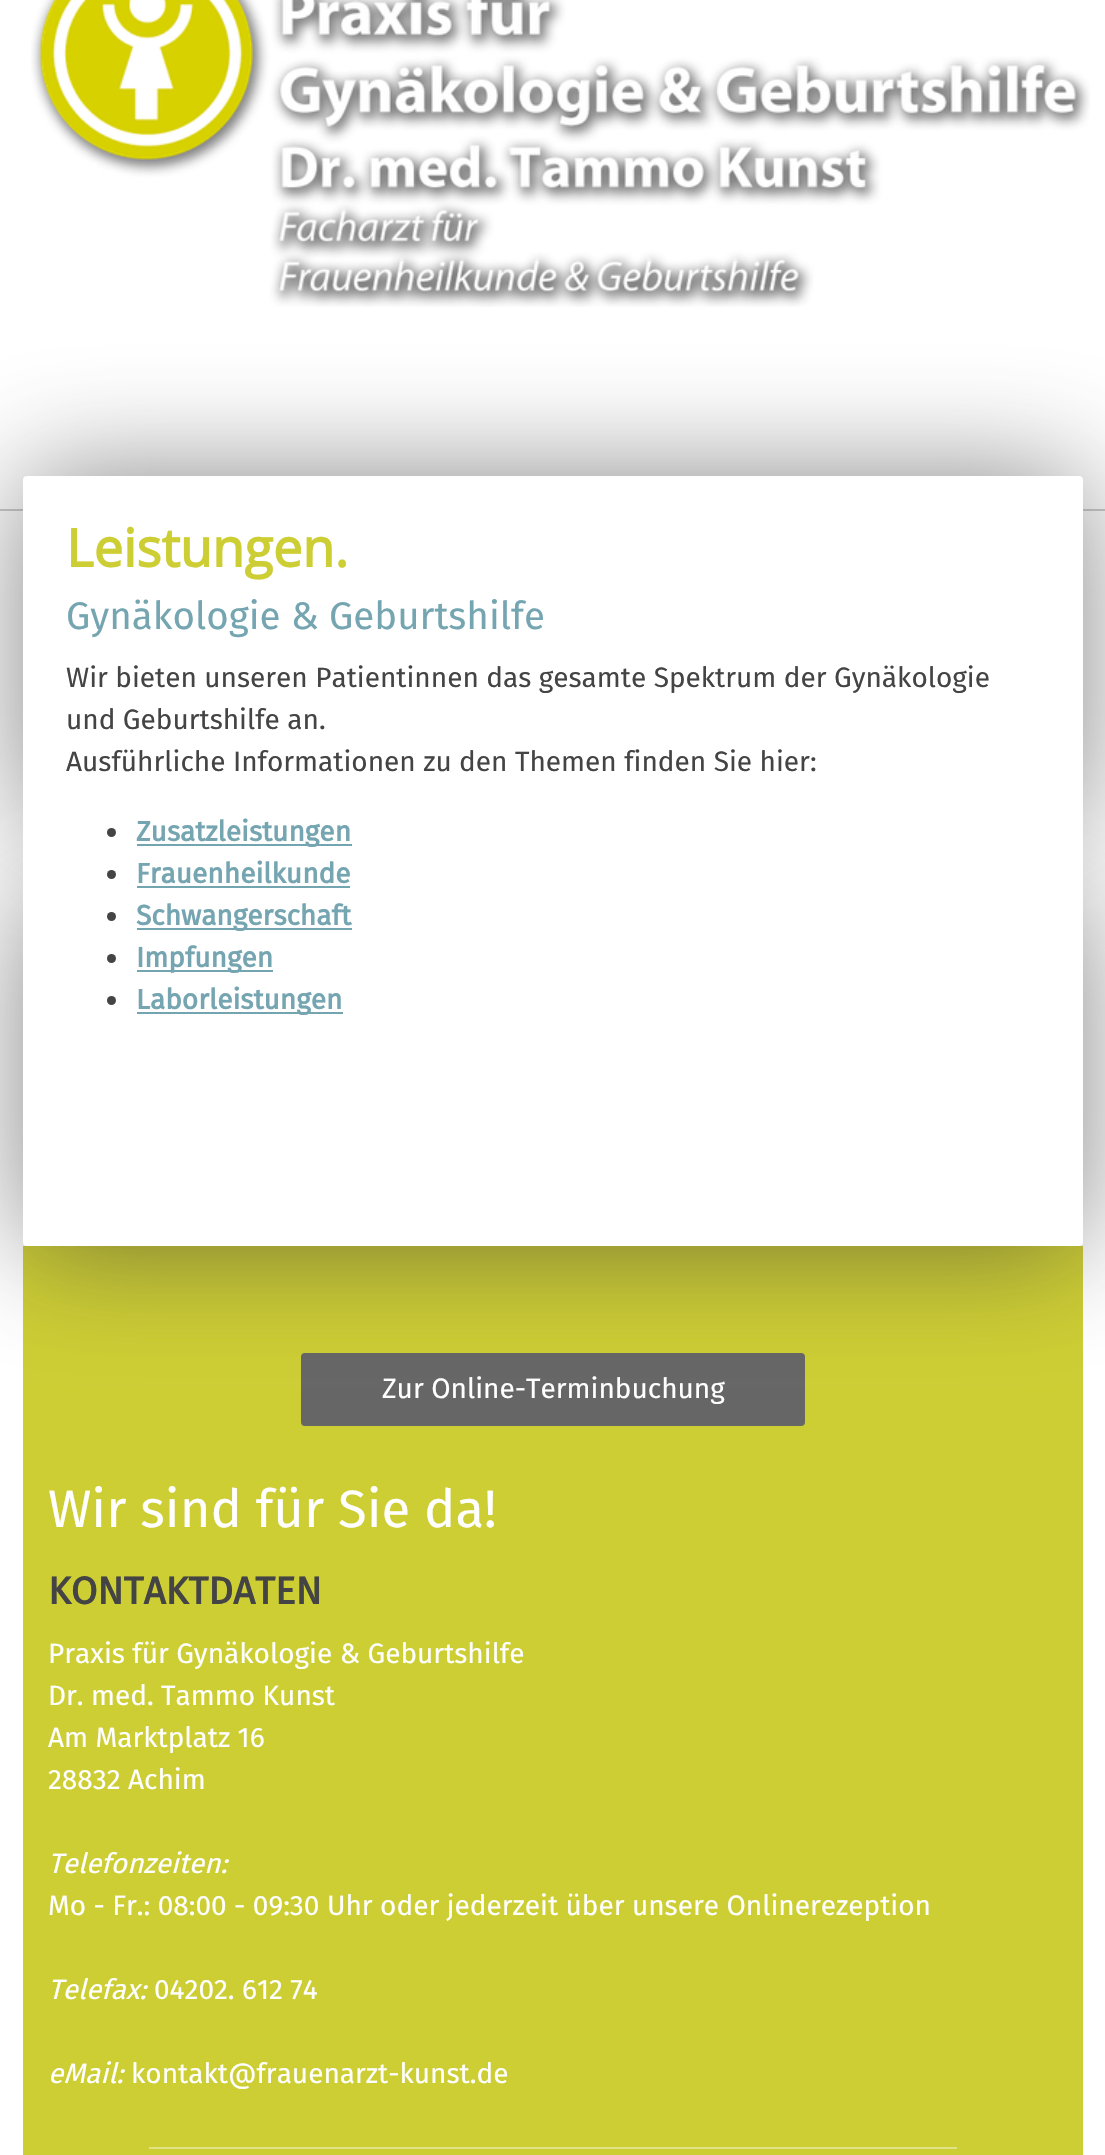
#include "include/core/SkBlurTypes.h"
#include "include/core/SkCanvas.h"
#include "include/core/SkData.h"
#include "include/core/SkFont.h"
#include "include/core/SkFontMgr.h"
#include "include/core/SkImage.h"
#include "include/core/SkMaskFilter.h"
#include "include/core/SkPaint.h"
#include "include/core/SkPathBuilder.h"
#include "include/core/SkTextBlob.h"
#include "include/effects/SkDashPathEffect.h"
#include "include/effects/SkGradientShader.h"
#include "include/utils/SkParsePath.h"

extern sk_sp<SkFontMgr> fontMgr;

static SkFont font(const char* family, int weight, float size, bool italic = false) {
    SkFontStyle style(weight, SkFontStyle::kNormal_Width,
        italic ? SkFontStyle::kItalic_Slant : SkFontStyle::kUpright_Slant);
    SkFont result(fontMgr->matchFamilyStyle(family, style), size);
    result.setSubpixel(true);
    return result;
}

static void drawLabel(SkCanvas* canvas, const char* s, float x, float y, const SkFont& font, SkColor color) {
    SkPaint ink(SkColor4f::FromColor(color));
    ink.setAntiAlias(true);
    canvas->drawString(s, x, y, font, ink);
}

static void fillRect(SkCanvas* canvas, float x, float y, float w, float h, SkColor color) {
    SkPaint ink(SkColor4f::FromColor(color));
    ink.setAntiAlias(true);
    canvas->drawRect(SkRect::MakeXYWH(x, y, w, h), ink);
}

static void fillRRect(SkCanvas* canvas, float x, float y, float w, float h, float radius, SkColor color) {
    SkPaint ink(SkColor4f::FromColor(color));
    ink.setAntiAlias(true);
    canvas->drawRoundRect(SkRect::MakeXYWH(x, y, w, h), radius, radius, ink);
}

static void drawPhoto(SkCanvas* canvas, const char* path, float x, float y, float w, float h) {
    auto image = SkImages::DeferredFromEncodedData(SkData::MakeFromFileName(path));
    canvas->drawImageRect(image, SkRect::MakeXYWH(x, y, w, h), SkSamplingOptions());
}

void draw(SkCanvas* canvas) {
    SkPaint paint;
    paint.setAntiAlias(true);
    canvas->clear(0xFFFFFFFF);
    drawPhoto(canvas, "assets/img1.png", 31, 0, 1059, 307);
    fillRect(canvas, 0, 509, 1105, 2, 0xFFCCCCCC);
    paint.setColor(0x99333333);
    paint.setMaskFilter(SkMaskFilter::MakeBlur(kNormal_SkBlurStyle, 59.5f));
    canvas->drawRect(SkRect::MakeXYWH(23, 476, 1060, 350), paint);
    paint.setMaskFilter(nullptr);
    fillRect(canvas, 23, 1246, 1060, 909, 0xFFCDCD34);
    paint.setColor(0xFF666666);
    canvas->drawRoundRect(SkRect::MakeXYWH(302, 1354, 502, 71), 3, 3, paint);
    paint.setStroke(true);
    paint.setStrokeWidth(2);
    canvas->drawRoundRect(SkRect::MakeXYWH(302, 1354, 502, 71), 3, 3, paint);
    paint.setStroke(false);
    paint.setColor(0x99333333);
    paint.setMaskFilter(SkMaskFilter::MakeBlur(kNormal_SkBlurStyle, 59.5f));
    canvas->drawRect(SkRect::MakeXYWH(23, 896, 1060, 350), paint);
    paint.setMaskFilter(nullptr);
    fillRRect(canvas, 23, 476, 1060, 770, 4, 0xFFFFFFFF);
    SkFont font1 = font("Open Sans", 700, 52.5f);
    drawLabel(canvas, "Leistungen.", 66, 567, font1, 0xFFCDCD34);
    SkFont font2 = font("Fira Sans", 400, 38.5f);
    drawLabel(canvas, "Gynäkologie & Geburtshilfe", 66, 629, font2, 0xFF74A5B0);
    SkFont font3 = font("Fira Sans", 400, 28);
    drawLabel(canvas, "Wir bieten unseren Patientinnen das gesamte Spektrum der Gynäkologie", 66, 687, font3, 0xFF444444);
    drawLabel(canvas, "und Geburtshilfe an.", 66, 729, font3, 0xFF444444);
    drawLabel(canvas, "Ausführliche Informationen zu den Themen finden Sie hier:", 66, 771, font3, 0xFF444444);
    paint.setColor(0xFF444444);
    canvas->drawCircle(111.5f, 832.5f, 4.5f, paint);
    fillRect(canvas, 137, 844, 215, 2, 0xFF73A5B0);
    SkFont font4 = font("Fira Sans", 700, 28);
    drawLabel(canvas, "Zusatzleistungen", 136, 841, font4, 0xFF74A5B0);
    canvas->drawCircle(111.5f, 874.5f, 4.5f, paint);
    drawLabel(canvas, "Frauenheilkunde", 136, 883, font4, 0xFF74A5B0);
    fillRect(canvas, 137, 886, 213, 2, 0xFF73A5B0);
    canvas->drawCircle(111.5f, 916.5f, 4.5f, paint);
    fillRect(canvas, 137, 928, 215, 2, 0xFF73A5B0);
    drawLabel(canvas, "Schwangerschaft", 136, 925, font4, 0xFF74A5B0);
    canvas->drawCircle(111.5f, 958.5f, 4.5f, paint);
    fillRect(canvas, 137, 970, 136, 2, 0xFF73A5B0);
    drawLabel(canvas, "Impfungen", 136, 967, font4, 0xFF74A5B0);
    canvas->drawCircle(111.5f, 1000.5f, 4.5f, paint);
    fillRect(canvas, 137, 1012, 206, 2, 0xFF73A5B0);
    drawLabel(canvas, "Laborleistungen", 136, 1009, font4, 0xFF74A5B0);
    drawLabel(canvas, "Zur Online-Terminbuchung", 382, 1398, font3, 0xFFFFFFFF);
    SkFont font5 = font("Fira Sans", 400, 52.5f);
    drawLabel(canvas, "Wir sind für Sie da!", 48, 1527, font5, 0xFFFFFFFF);
    SkFont font6 = font("Fira Sans", 700, 38.5f);
    drawLabel(canvas, "KONTAKTDATEN", 48, 1604, font6, 0xFF444444);
    drawLabel(canvas, "Praxis für Gynäkologie & Geburtshilfe", 48, 1663, font3, 0xFFFFFFFF);
    drawLabel(canvas, "Dr. med. Tammo Kunst", 48, 1705, font3, 0xFFFFFFFF);
    drawLabel(canvas, "Am Marktplatz 16", 48, 1747, font3, 0xFFFFFFFF);
    drawLabel(canvas, "28832 Achim", 48, 1789, font3, 0xFFFFFFFF);
    SkFont font7 = font("Fira Sans", 400, 28, true);
    drawLabel(canvas, "Telefonzeiten:", 48, 1873, font7, 0xFFFFFFFF);
    drawLabel(canvas, "Mo - Fr.: 08:00 - 09:30 Uhr oder jederzeit über unsere Onlinerezeption", 48, 1915, font3, 0xFFFFFFFF);
    drawLabel(canvas, "Telefax:", 48, 1999, font7, 0xFFFFFFFF);
    drawLabel(canvas, "04202. 612 74", 154, 1999, font3, 0xFFFFFFFF);
    drawLabel(canvas, "eMail:", 48, 2083, font7, 0xFFFFFFFF);
    drawLabel(canvas, "kontakt@frauenarzt-kunst.de", 131, 2083, font3, 0xFFFFFFFF);
    fillRect(canvas, 149, 2147, 808, 2, 0xFFE1E186);
}
